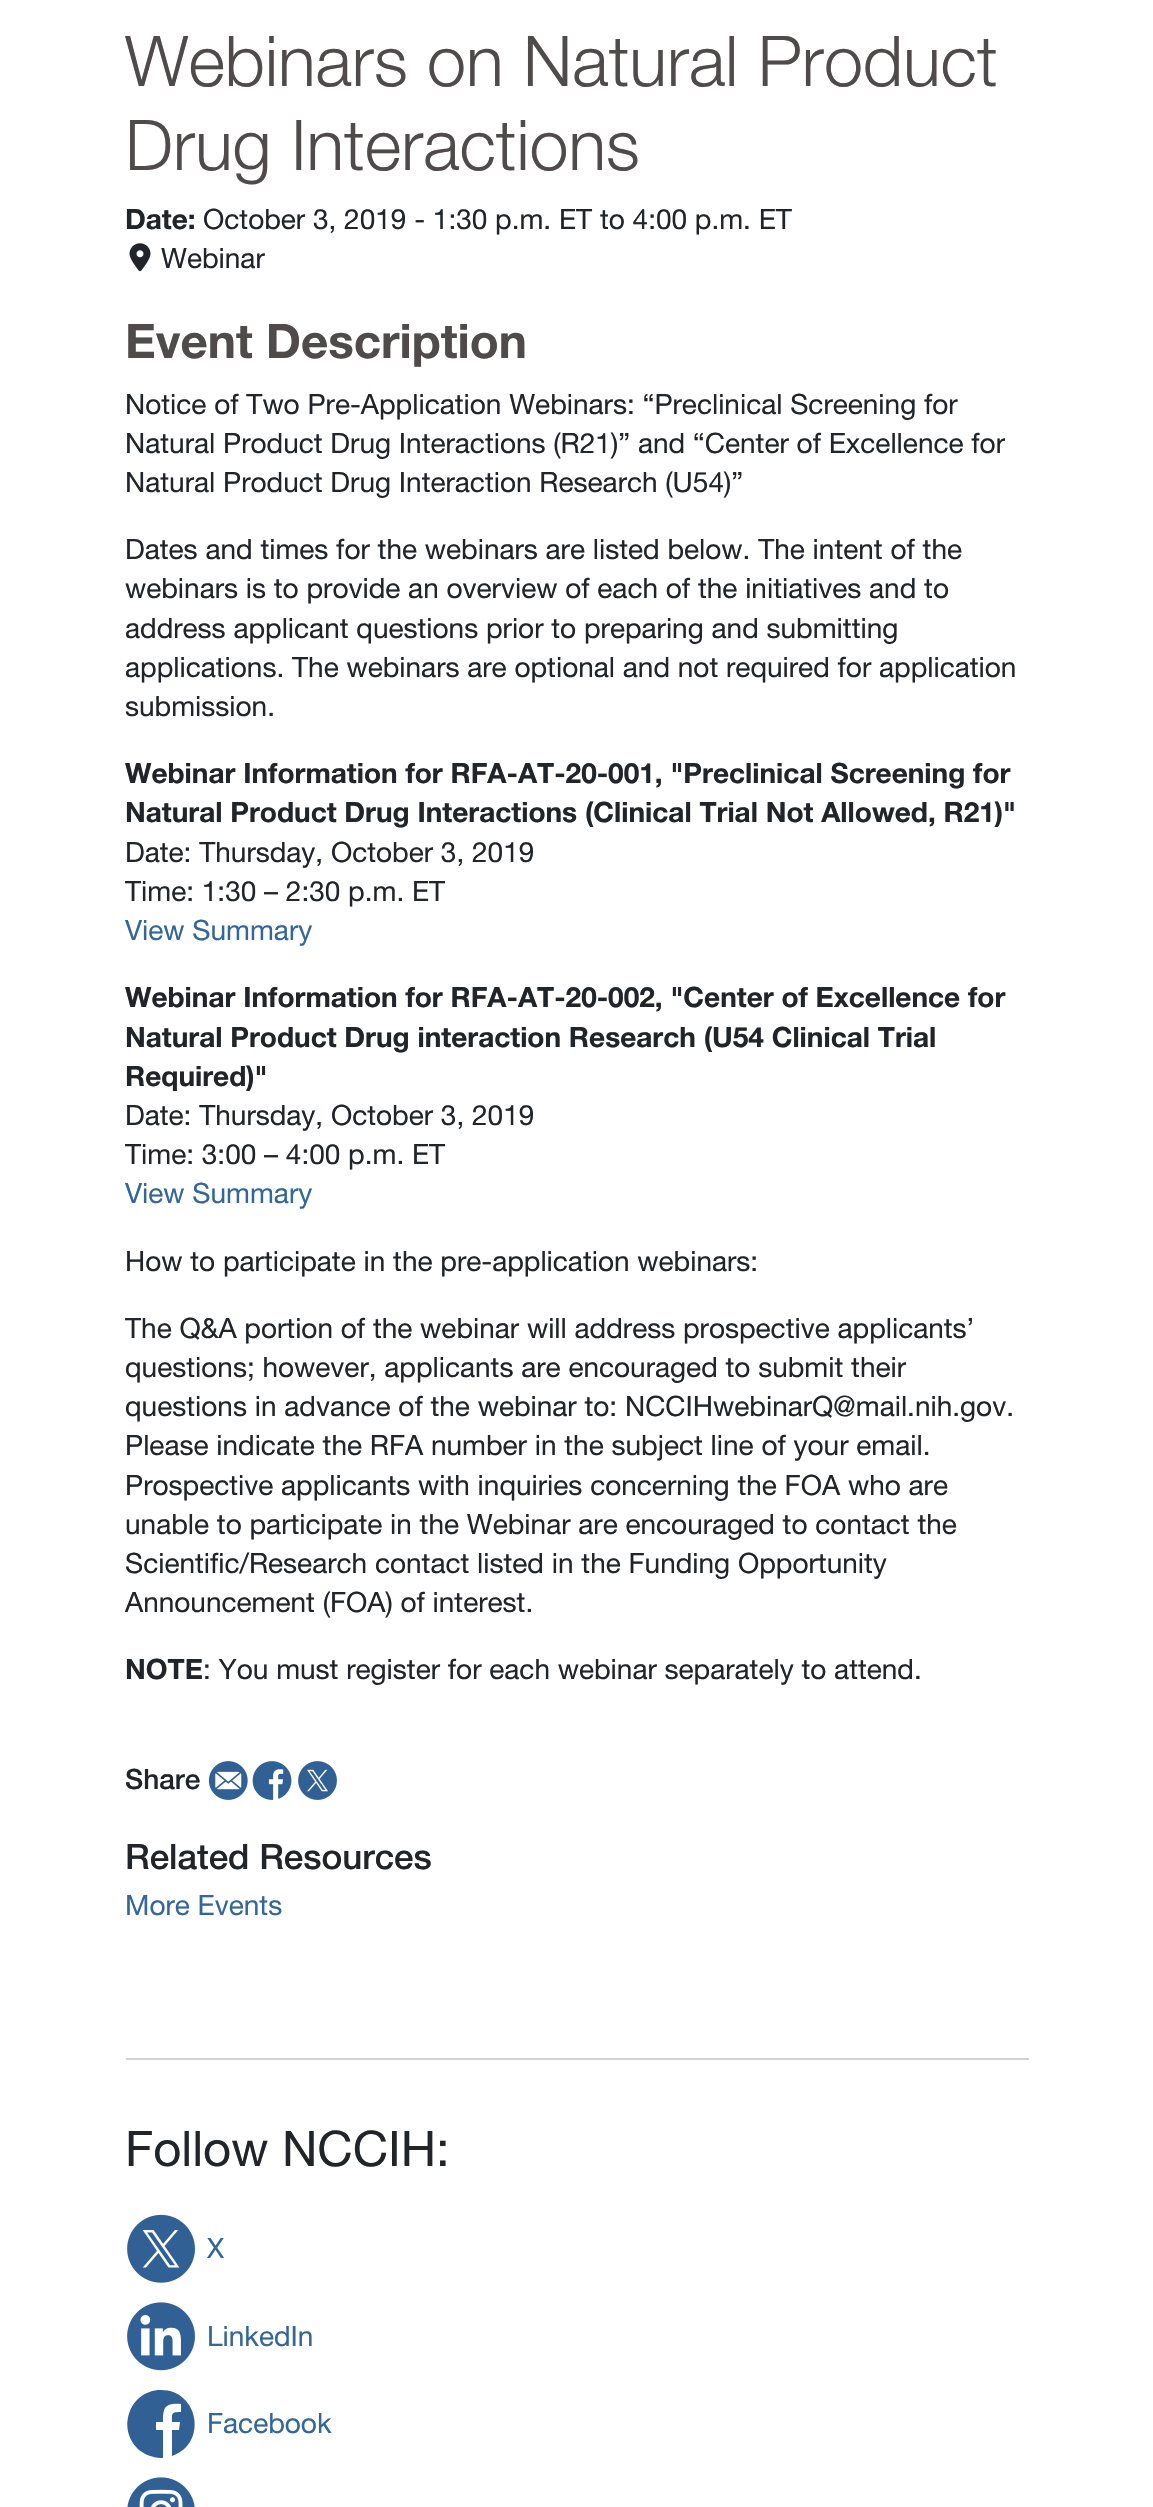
#include "include/core/SkBlurTypes.h"
#include "include/core/SkCanvas.h"
#include "include/core/SkData.h"
#include "include/core/SkFont.h"
#include "include/core/SkFontMgr.h"
#include "include/core/SkImage.h"
#include "include/core/SkMaskFilter.h"
#include "include/core/SkPaint.h"
#include "include/core/SkPathBuilder.h"
#include "include/core/SkTextBlob.h"
#include "include/effects/SkDashPathEffect.h"
#include "include/effects/SkGradientShader.h"
#include "include/utils/SkParsePath.h"

extern sk_sp<SkFontMgr> fontMgr;

static SkFont font(const char* family, int weight, float size, bool italic = false) {
    SkFontStyle style(weight, SkFontStyle::kNormal_Width,
        italic ? SkFontStyle::kItalic_Slant : SkFontStyle::kUpright_Slant);
    SkFont result(fontMgr->matchFamilyStyle(family, style), size);
    result.setSubpixel(true);
    return result;
}

static void drawLabel(SkCanvas* canvas, const char* s, float x, float y, const SkFont& font, SkColor color) {
    SkPaint ink(SkColor4f::FromColor(color));
    ink.setAntiAlias(true);
    canvas->drawString(s, x, y, font, ink);
}

static void fillRect(SkCanvas* canvas, float x, float y, float w, float h, SkColor color) {
    SkPaint ink(SkColor4f::FromColor(color));
    ink.setAntiAlias(true);
    canvas->drawRect(SkRect::MakeXYWH(x, y, w, h), ink);
}

static void drawPhoto(SkCanvas* canvas, const char* path, float x, float y, float w, float h) {
    auto image = SkImages::DeferredFromEncodedData(SkData::MakeFromFileName(path));
    canvas->drawImageRect(image, SkRect::MakeXYWH(x, y, w, h), SkSamplingOptions());
}

static SkPath parsePath(const char* data, bool evenOdd = false) {
    SkPath result = *SkParsePath::FromSVGString(data);
    if (evenOdd) result.setFillType(SkPathFillType::kEvenOdd);
    return result;
}

void draw(SkCanvas* canvas) {
    SkPaint paint;
    paint.setAntiAlias(true);
    canvas->clear(0xFFFFFFFF);
    SkFont font1 = font("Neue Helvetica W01", 300, 70);
    drawLabel(canvas, "Webinars on Natural Product", 125, 86, font1, 0xFF4F4B4B);
    drawLabel(canvas, "Drug Interactions", 125, 170, font1, 0xFF4F4B4B);
    SkFont font2 = font("Neue Helvetica W01", 700, 28);
    drawLabel(canvas, "Date:", 125, 229, font2, 0xFF212529);
    SkFont font3 = font("Neue Helvetica W01", 400, 28);
    drawLabel(canvas, "October 3, 2019 - 1:30 p.m. ET to 4:00 p.m. ET", 203, 229, font3, 0xFF212529);
    drawPhoto(canvas, "assets/img1.png", 129, 243, 22, 29);
    drawLabel(canvas, "Webinar", 161, 268, font3, 0xFF212529);
    SkFont font4 = font("Neue Helvetica W01", 700, 47.5f);
    drawLabel(canvas, "Event Description", 125, 358, font4, 0xFF4F4B4B);
    drawLabel(canvas, "Notice of Two Pre-Application Webinars: “Preclinical Screening for", 125, 414, font3, 0xFF212529);
    drawLabel(canvas, "Natural Product Drug Interactions (R21)” and “Center of Excellence for", 125, 453, font3, 0xFF212529);
    drawLabel(canvas, "Natural Product Drug Interaction Research (U54)”", 125, 492, font3, 0xFF212529);
    drawLabel(canvas, "Dates and times for the webinars are listed below. The intent of the", 125, 559, font3, 0xFF212529);
    drawLabel(canvas, "webinars is to provide an overview of each of the initiatives and to", 125, 598, font3, 0xFF212529);
    drawLabel(canvas, "address applicant questions prior to preparing and submitting", 125, 638, font3, 0xFF212529);
    drawLabel(canvas, "applications. The webinars are optional and not required for application", 125, 677, font3, 0xFF212529);
    drawLabel(canvas, "submission.", 125, 716, font3, 0xFF212529);
    drawLabel(canvas, "Webinar Information for RFA-AT-20-001, \"Preclinical Screening for", 125, 783, font2, 0xFF212529);
    drawLabel(canvas, "Natural Product Drug Interactions (Clinical Trial Not Allowed, R21)\"", 125, 822, font2, 0xFF212529);
    drawLabel(canvas, "Date: Thursday, October 3, 2019", 125, 862, font3, 0xFF212529);
    drawLabel(canvas, "Time: 1:30 – 2:30 p.m. ET", 125, 901, font3, 0xFF212529);
    drawLabel(canvas, "View Summary", 125, 940, font3, 0xFF336699);
    drawLabel(canvas, "Webinar Information for RFA-AT-20-002, \"Center of Excellence for", 125, 1007, font2, 0xFF212529);
    drawLabel(canvas, "Natural Product Drug interaction Research (U54 Clinical Trial", 125, 1047, font2, 0xFF212529);
    drawLabel(canvas, "Required)\"", 125, 1086, font2, 0xFF212529);
    drawLabel(canvas, "Date: Thursday, October 3, 2019", 125, 1125, font3, 0xFF212529);
    drawLabel(canvas, "Time: 3:00 – 4:00 p.m. ET", 125, 1164, font3, 0xFF212529);
    drawLabel(canvas, "View Summary", 125, 1203, font3, 0xFF336699);
    drawLabel(canvas, "How to participate in the pre-application webinars:", 125, 1271, font3, 0xFF212529);
    drawLabel(canvas, "The Q&A portion of the webinar will address prospective applicants’", 125, 1338, font3, 0xFF212529);
    drawLabel(canvas, "questions; however, applicants are encouraged to submit their", 125, 1377, font3, 0xFF212529);
    drawLabel(canvas, "questions in advance of the webinar to: NCCIHwebinarQ@mail.nih.gov.", 125, 1416, font3, 0xFF212529);
    drawLabel(canvas, "Please indicate the RFA number in the subject line of your email.", 125, 1455, font3, 0xFF212529);
    drawLabel(canvas, "Prospective applicants with inquiries concerning the FOA who are", 125, 1495, font3, 0xFF212529);
    drawLabel(canvas, "unable to participate in the Webinar are encouraged to contact the", 125, 1534, font3, 0xFF212529);
    drawLabel(canvas, "Scientific/Research contact listed in the Funding Opportunity", 125, 1573, font3, 0xFF212529);
    drawLabel(canvas, "Announcement (FOA) of interest.", 125, 1612, font3, 0xFF212529);
    drawLabel(canvas, "NOTE", 125, 1679, font2, 0xFF212529);
    drawLabel(canvas, ": You must register for each webinar separately to attend.", 203, 1679, font3, 0xFF212529);
    SkFont font5 = font("Neue Helvetica W01", 500, 28);
    drawLabel(canvas, "Share", 125, 1789, font5, 0xFF212529);
    drawPhoto(canvas, "assets/img2.png", 208, 1761, 40, 39);
    drawPhoto(canvas, "assets/img3.png", 252, 1761, 40, 39);
    drawPhoto(canvas, "assets/img4.png", 298, 1761, 39, 39);
    SkFont font6 = font("Neue Helvetica W01", 500, 35);
    drawLabel(canvas, "Related Resources", 125, 1869, font6, 0xFF212529);
    drawLabel(canvas, "More Events", 125, 1915, font3, 0xFF336699);
    fillRect(canvas, 126, 2058, 903, 2, 0xFFD1D1D1);
    SkFont font7 = font("Neue Helvetica W01", 400, 49);
    drawLabel(canvas, "Follow NCCIH:", 125, 2166, font7, 0xFF212529);
    drawPhoto(canvas, "assets/img5.png", 127, 2214, 68, 69);
    drawLabel(canvas, "X", 207, 2258, font3, 0xFF336699);
    drawPhoto(canvas, "assets/img6.png", 127, 2302, 68, 69);
    drawLabel(canvas, "LinkedIn", 207, 2346, font3, 0xFF336699);
    drawLabel(canvas, "Facebook", 207, 2433, font3, 0xFF336699);
    paint.setColor(0xFF316094);
    canvas->drawPath(parsePath("M161 2390C128 2390 115 2433 142 2452C148 2456 156 2458 163 2458V2430H156V2422H163C163 2407 165 2403 181 2404V2412C171 2412 172 2413 172 2422H180L179 2430H172V2456C208 2444 199 2390 161 2390Z"), paint);
    drawPhoto(canvas, "assets/img7.png", 127, 2477, 68, 30);
}
